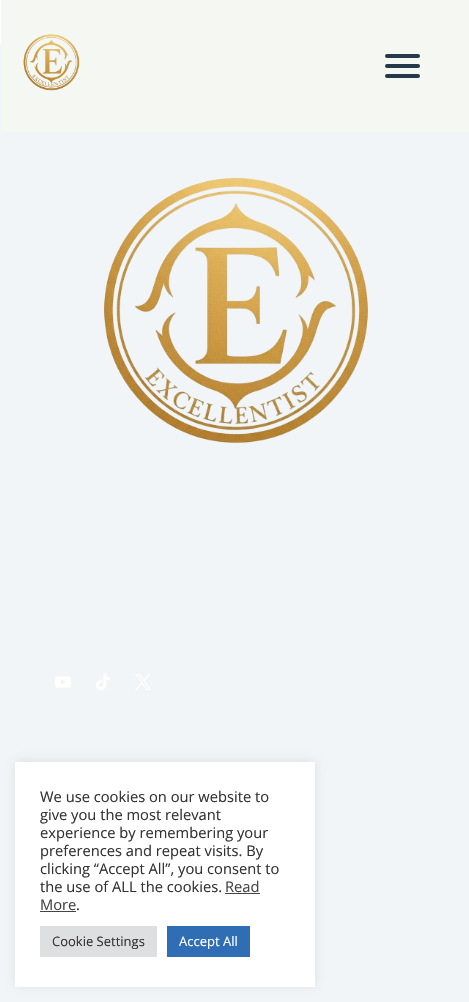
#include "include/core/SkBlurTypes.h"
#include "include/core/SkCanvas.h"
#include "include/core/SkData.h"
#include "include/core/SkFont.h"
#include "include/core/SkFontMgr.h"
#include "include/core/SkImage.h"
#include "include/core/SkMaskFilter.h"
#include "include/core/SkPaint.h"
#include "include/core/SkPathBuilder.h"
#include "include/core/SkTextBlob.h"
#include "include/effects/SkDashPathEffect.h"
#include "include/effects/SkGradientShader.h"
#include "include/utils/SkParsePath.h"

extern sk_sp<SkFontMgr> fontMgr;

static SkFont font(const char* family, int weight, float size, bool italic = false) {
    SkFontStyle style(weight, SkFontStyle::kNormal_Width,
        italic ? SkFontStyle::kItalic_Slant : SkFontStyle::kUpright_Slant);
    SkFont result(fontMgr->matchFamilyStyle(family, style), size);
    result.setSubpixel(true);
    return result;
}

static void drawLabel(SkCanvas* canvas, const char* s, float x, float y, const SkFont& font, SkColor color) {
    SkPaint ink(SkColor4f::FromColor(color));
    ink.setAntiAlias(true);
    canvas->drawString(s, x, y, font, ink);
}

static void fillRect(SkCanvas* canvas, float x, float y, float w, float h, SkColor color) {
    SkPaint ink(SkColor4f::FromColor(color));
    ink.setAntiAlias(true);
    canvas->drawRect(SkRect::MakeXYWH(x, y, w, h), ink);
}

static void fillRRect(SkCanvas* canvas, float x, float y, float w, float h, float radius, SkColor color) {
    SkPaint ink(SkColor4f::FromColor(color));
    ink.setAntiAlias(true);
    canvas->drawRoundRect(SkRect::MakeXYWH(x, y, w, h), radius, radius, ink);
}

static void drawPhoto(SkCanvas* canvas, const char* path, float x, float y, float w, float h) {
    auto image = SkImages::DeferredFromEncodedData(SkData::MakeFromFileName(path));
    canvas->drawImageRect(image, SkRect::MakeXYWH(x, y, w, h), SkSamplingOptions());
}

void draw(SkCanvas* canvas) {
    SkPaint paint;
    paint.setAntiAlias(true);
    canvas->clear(0xFFFFFFFF);
    fillRect(canvas, 0, 44, 469, 958, 0xFFF2F5F7);
    fillRect(canvas, 1, 0, 468, 132, 0xFFF5F7F3);
    drawPhoto(canvas, "assets/img1.png", 23, 34, 57, 57);
    fillRRect(canvas, 385, 54, 35, 4, 2, 0xFF24394A);
    fillRRect(canvas, 385, 64, 35, 4, 2, 0xFF24394A);
    fillRRect(canvas, 385, 74, 35, 4, 2, 0xFF24394A);
    drawPhoto(canvas, "assets/img2.png", 103, 177, 266, 267);
    drawPhoto(canvas, "assets/img3.png", 55, 676, 16, 12);
    drawPhoto(canvas, "assets/img4.png", 96, 674, 14, 16);
    drawPhoto(canvas, "assets/img5.png", 135, 674, 16, 16);
    paint.setColor(0x4DACABAB);
    paint.setMaskFilter(SkMaskFilter::MakeBlur(kNormal_SkBlurStyle, 5));
    canvas->drawRect(SkRect::MakeXYWH(15, 761, 300, 225), paint);
    paint.setMaskFilter(nullptr);
    fillRect(canvas, 15, 762, 300, 225, 0xFFFFFFFF);
    SkFont font1 = font("Open Sans", 400, 14.7f);
    drawLabel(canvas, "We use cookies on our website to", 40, 802, font1, 0xFF333333);
    drawLabel(canvas, "give you the most relevant", 40, 820, font1, 0xFF333333);
    drawLabel(canvas, "experience by remembering your", 40, 838, font1, 0xFF333333);
    drawLabel(canvas, "preferences and repeat visits. By", 40, 856, font1, 0xFF333333);
    drawLabel(canvas, "clicking “Accept All”, you consent to", 40, 874, font1, 0xFF333333);
    drawLabel(canvas, "the use of ALL the cookies.", 40, 892, font1, 0xFF333333);
    drawLabel(canvas, "Read", 225, 892, font1, 0xFF444444);
    fillRect(canvas, 225, 893, 35, 1, 0xFF444444);
    drawLabel(canvas, "More", 40, 910, font1, 0xFF444444);
    fillRect(canvas, 40, 911, 36, 1, 0xFF444444);
    drawLabel(canvas, ".", 76, 910, font1, 0xFF333333);
    fillRect(canvas, 40, 926, 117, 31, 0xFFDEDFE0);
    SkFont font2 = font("Open Sans", 400, 13);
    drawLabel(canvas, "Cookie Settings", 52, 946, font2, 0xFF333333);
    fillRect(canvas, 167, 926, 83, 31, 0xFF2F6EB4);
    drawLabel(canvas, "Accept All", 179, 946, font2, 0xFFFFFFFF);
}
